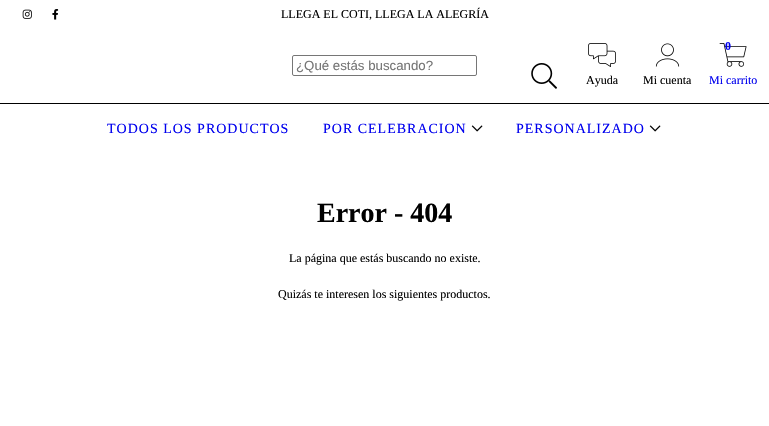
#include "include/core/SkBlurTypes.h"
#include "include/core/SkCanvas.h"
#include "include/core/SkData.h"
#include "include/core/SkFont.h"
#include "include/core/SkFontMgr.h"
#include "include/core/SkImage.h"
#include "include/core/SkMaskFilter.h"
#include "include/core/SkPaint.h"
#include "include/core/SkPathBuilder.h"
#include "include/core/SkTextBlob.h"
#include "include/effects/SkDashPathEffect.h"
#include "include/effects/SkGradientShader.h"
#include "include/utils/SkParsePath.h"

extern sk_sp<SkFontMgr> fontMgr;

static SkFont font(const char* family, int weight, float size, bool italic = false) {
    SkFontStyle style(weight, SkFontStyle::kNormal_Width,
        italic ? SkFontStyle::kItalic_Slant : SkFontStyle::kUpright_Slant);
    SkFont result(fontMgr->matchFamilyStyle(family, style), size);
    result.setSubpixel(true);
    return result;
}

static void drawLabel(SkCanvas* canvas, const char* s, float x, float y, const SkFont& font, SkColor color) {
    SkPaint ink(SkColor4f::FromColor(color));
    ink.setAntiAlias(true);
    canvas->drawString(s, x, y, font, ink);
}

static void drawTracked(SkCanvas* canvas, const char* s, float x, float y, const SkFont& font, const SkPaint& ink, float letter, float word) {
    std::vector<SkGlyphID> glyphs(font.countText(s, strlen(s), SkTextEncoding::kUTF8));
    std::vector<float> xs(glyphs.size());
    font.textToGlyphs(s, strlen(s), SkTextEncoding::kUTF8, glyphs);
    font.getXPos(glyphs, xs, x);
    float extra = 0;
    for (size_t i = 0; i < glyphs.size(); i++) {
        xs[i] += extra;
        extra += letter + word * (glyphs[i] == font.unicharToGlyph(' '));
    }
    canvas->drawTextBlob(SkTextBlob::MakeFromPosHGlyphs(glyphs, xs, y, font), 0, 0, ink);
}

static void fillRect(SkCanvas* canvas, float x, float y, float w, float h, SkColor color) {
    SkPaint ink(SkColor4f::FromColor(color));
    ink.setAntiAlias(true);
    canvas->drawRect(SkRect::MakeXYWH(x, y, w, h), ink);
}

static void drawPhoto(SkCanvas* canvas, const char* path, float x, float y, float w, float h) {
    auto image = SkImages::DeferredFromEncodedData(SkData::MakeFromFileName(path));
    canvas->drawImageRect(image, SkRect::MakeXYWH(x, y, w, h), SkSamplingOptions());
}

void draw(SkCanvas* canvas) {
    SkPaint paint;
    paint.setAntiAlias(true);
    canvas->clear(0xFFFFFFFF);
    drawPhoto(canvas, "assets/img1.png", 22, 9, 10, 10);
    drawPhoto(canvas, "assets/img2.png", 52, 9, 7, 11);
    SkFont font1 = font("Liberation Serif", 400, 12);
    drawLabel(canvas, "LLEGA EL COTI, LLEGA LA ALEGRÍA", 281, 18, font1, 0xFF000000);
    paint.setStroke(true);
    paint.setStrokeWidth(1);
    paint.setColor(0xFF767676);
    canvas->drawRoundRect(SkRect::MakeXYWH(292.5f, 55.5f, 184, 20), 1.5f, 1.5f, paint);
    SkFont font2 = font("Liberation Sans", 400, 13.25f);
    drawLabel(canvas, "¿Qué estás buscando?", 296, 70, font2, 0xFF757575);
    drawPhoto(canvas, "assets/img3.png", 531, 63, 26, 26);
    drawPhoto(canvas, "assets/img4.png", 588, 43, 28, 24);
    drawLabel(canvas, "Ayuda", 586, 84, font1, 0xFF000000);
    drawPhoto(canvas, "assets/img5.png", 655, 43, 25, 24);
    drawLabel(canvas, "Mi cuenta", 643, 84, font1, 0xFF000000);
    drawPhoto(canvas, "assets/img6.png", 719, 43, 28, 24);
    SkFont font3 = font("Liberation Serif", 700, 12);
    drawLabel(canvas, "0", 725, 50, font3, 0xFF0000EE);
    drawLabel(canvas, "Mi carrito", 709, 84, font1, 0xFF0000EE);
    fillRect(canvas, 0, 103, 769, 1, 0xFF000000);
    SkFont font4 = font("Liberation Serif", 400, 14);
    paint.setStroke(false);
    paint.setColor(0xFF0000EE);
    drawTracked(canvas, "TODOS LOS PRODUCTOS", 107, 133, font4, paint, 1, 0);
    drawTracked(canvas, "POR CELEBRACION", 323, 133, font4, paint, 1, 0);
    drawPhoto(canvas, "assets/img7.png", 471, 125, 12, 7);
    drawTracked(canvas, "PERSONALIZADO", 516, 133, font4, paint, 1, 0);
    drawPhoto(canvas, "assets/img7.png", 649, 125, 12, 7);
    SkFont font5 = font("Liberation Serif", 700, 28);
    drawLabel(canvas, "Error - 404", 317, 222, font5, 0xFF000000);
    drawLabel(canvas, "La página que estás buscando no existe.", 289, 262, font1, 0xFF000000);
    drawLabel(canvas, "Quizás te interesen los siguientes productos.", 278, 298, font1, 0xFF000000);
}
